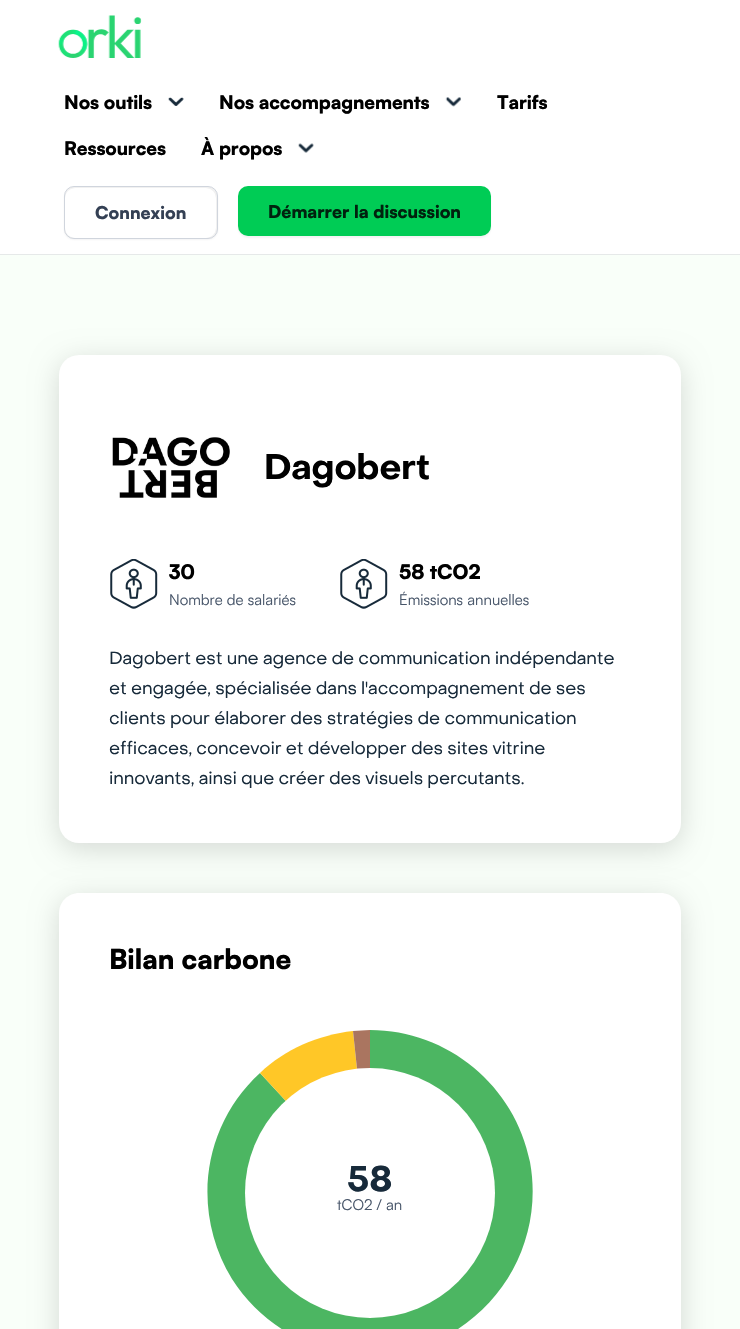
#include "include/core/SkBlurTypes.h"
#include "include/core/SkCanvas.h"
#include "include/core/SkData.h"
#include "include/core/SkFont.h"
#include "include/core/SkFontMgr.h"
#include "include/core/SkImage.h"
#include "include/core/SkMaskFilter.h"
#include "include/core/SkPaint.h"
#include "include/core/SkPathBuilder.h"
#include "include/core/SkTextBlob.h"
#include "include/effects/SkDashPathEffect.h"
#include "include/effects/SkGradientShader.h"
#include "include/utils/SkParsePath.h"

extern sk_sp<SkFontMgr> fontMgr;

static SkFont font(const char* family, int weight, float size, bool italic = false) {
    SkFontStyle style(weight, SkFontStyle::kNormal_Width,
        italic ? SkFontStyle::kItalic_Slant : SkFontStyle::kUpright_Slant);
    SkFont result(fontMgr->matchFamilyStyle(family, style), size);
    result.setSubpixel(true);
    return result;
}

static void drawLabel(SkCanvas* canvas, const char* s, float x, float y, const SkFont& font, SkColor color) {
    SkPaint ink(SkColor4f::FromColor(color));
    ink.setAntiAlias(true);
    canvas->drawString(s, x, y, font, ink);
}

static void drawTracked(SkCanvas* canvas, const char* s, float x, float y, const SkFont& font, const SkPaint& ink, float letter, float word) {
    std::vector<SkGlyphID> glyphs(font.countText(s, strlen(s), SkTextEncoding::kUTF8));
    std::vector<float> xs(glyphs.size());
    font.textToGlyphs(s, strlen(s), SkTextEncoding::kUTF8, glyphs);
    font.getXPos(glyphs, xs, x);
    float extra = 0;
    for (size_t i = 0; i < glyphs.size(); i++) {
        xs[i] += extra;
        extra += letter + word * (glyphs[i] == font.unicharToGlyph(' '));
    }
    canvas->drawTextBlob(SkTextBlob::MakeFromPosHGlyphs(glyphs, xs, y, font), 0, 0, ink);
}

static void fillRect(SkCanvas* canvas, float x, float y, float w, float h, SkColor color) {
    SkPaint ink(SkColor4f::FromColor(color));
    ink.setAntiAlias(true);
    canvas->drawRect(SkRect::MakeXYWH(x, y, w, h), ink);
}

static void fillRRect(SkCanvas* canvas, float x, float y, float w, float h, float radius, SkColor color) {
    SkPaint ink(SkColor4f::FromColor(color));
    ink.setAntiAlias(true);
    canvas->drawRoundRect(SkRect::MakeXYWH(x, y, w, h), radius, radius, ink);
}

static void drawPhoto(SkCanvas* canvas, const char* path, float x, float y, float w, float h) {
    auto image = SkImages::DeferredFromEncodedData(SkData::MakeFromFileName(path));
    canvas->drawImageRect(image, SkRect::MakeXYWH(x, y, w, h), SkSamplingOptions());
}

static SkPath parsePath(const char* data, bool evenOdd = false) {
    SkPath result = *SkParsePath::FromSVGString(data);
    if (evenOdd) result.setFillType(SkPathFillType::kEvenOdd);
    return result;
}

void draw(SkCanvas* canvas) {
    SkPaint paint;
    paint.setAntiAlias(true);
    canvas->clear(0xFFFFFFFF);
    fillRect(canvas, 0, 254, 740, 1, 0xFFE6E9E9);
    drawPhoto(canvas, "assets/img1.png", 58, 15, 84, 43);
    SkFont font1 = font("Satoshi", 900, 18.75f);
    paint.setColor(0xFF000000);
    drawTracked(canvas, "Nos outils", 64, 109, font1, paint, -0.1f, 0);
    drawPhoto(canvas, "assets/img2.png", 168, 97, 16, 9);
    drawTracked(canvas, "Nos accompagnements", 219, 109, font1, paint, -0.1f, 0);
    drawPhoto(canvas, "assets/img3.png", 445, 97, 16, 10);
    drawTracked(canvas, "Tarifs", 497, 109, font1, paint, -0.1f, 0);
    drawTracked(canvas, "Ressources", 64, 155, font1, paint, -0.1f, 0);
    drawTracked(canvas, "À propos", 201, 155, font1, paint, -0.1f, 0);
    drawPhoto(canvas, "assets/img4.png", 298, 143, 16, 10);
    paint.setColor(0x0D101828);
    paint.setMaskFilter(SkMaskFilter::MakeBlur(kNormal_SkBlurStyle, 1));
    canvas->drawRoundRect(SkRect::MakeXYWH(64, 188, 154, 52), 10, 10, paint);
    paint.setMaskFilter(nullptr);
    paint.setColor(0xFFF1F1F1);
    canvas->drawRoundRect(SkRect::MakeXYWH(64.5f, 186.5f, 153, 52), 9.5f, 9.5f, paint);
    paint.setStroke(true);
    paint.setStrokeWidth(1);
    paint.setColor(0xFFD0D5DD);
    canvas->drawRoundRect(SkRect::MakeXYWH(64.5f, 186.5f, 153, 52), 9.5f, 9.5f, paint);
    canvas->save();
    canvas->clipPath(parsePath("M74 188H207C212 188 216 192 216 197V229C216 234 212 238 207 238H74C69 238 65 234 65 229V197C65 192 69 188 74 188Z"), true);
    fillRRect(canvas, 65, 188, 151, 50, 10, 0xFFFFFFFF);
    canvas->restore();
    SkFont font2 = font("Satoshi", 900, 17.5f);
    drawLabel(canvas, "Connexion", 95, 219, font2, 0xFF344054);
    paint.setStroke(false);
    paint.setColor(0x0D101828);
    paint.setMaskFilter(SkMaskFilter::MakeBlur(kNormal_SkBlurStyle, 1));
    canvas->drawRoundRect(SkRect::MakeXYWH(238, 188, 253, 50), 10, 10, paint);
    paint.setMaskFilter(nullptr);
    fillRRect(canvas, 238, 186, 253, 50, 10, 0xFF00CC55);
    drawLabel(canvas, "Démarrer la discussion", 268, 218, font2, 0xFF00220E);
    fillRect(canvas, 0, 255, 740, 1074, 0xFFF9FFF9);
    paint.setColor(0x26000000);
    paint.setMaskFilter(SkMaskFilter::MakeBlur(kNormal_SkBlurStyle, 14));
    canvas->drawRoundRect(SkRect::MakeXYWH(59, 361, 622, 488), 20, 20, paint);
    paint.setMaskFilter(nullptr);
    fillRRect(canvas, 59, 355, 622, 488, 20, 0xFFFFFFFF);
    drawPhoto(canvas, "assets/img5.png", 112, 437, 118, 61);
    SkFont font3 = font("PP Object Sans", 700, 35);
    drawLabel(canvas, "Dagobert", 264, 479, font3, 0xFF000000);
    drawPhoto(canvas, "assets/img6.png", 110, 559, 48, 50);
    SkFont font4 = font("Satoshi", 900, 20);
    drawLabel(canvas, "30", 169, 579, font4, 0xFF000000);
    SkFont font5 = font("Satoshi", 400, 15);
    drawLabel(canvas, "Nombre de salariés", 169, 605, font5, 0xFF475569);
    drawPhoto(canvas, "assets/img6.png", 340, 559, 48, 50);
    drawLabel(canvas, "58 tCO2", 399, 579, font4, 0xFF000000);
    drawLabel(canvas, "Émissions annuelles", 399, 605, font5, 0xFF475569);
    SkFont font6 = font("PP Object Sans", 400, 17.5f);
    paint.setColor(0xFF172A3A);
    drawTracked(canvas, "Dagobert est une agence de communication indépendante", 109, 664, font6, paint, -0.1f, 0);
    drawTracked(canvas, "et engagée, spécialisée dans l'accompagnement de ses", 109, 694, font6, paint, -0.1f, 0);
    drawTracked(canvas, "clients pour élaborer des stratégies de communication", 109, 724, font6, paint, -0.1f, 0);
    drawTracked(canvas, "efficaces, concevoir et développer des sites vitrine", 109, 754, font6, paint, -0.1f, 0);
    drawTracked(canvas, "innovants, ainsi que créer des visuels percutants.", 109, 784, font6, paint, -0.1f, 0);
    paint.setColor(0x26000000);
    paint.setMaskFilter(SkMaskFilter::MakeBlur(kNormal_SkBlurStyle, 14));
    canvas->drawRoundRect(SkRect::MakeXYWH(59, 899, 622, 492), 20, 20, paint);
    paint.setMaskFilter(nullptr);
    paint.setColor(0xFFFFFFFF);
    canvas->drawPath(parsePath("M79 893H661C672 893 681 902 681 913V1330H59V913C59 902 68 893 79 893Z"), paint);
    SkFont font7 = font("Satoshi", 900, 27.5f);
    drawLabel(canvas, "Bilan carbone", 109, 969, font7, 0xFF000000);
    paint.setColor(0xFF4CB662);
    canvas->drawPath(parsePath("M370 1192V1030C448 1030 515 1086 530 1162C544 1239 502 1315 429 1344C356 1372 274 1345 232 1279C191 1212 202 1126 260 1073Z"), paint);
    paint.setColor(0xFFFFC727);
    canvas->drawPath(parsePath("M370 1192L260 1073C285 1049 318 1035 353 1031Z"), paint);
    paint.setColor(0xFFAA7560);
    canvas->drawPath(parsePath("M370 1192L353 1031L370 1030Z"), paint);
    paint.setColor(0xFFFFFFFF);
    canvas->drawCircle(370, 1193, 125, paint);
    drawLabel(canvas, "58", 347, 1191, font3, 0xFF172A3A);
    drawLabel(canvas, "tCO2 / an", 337, 1210, font5, 0xFF475569);
}
